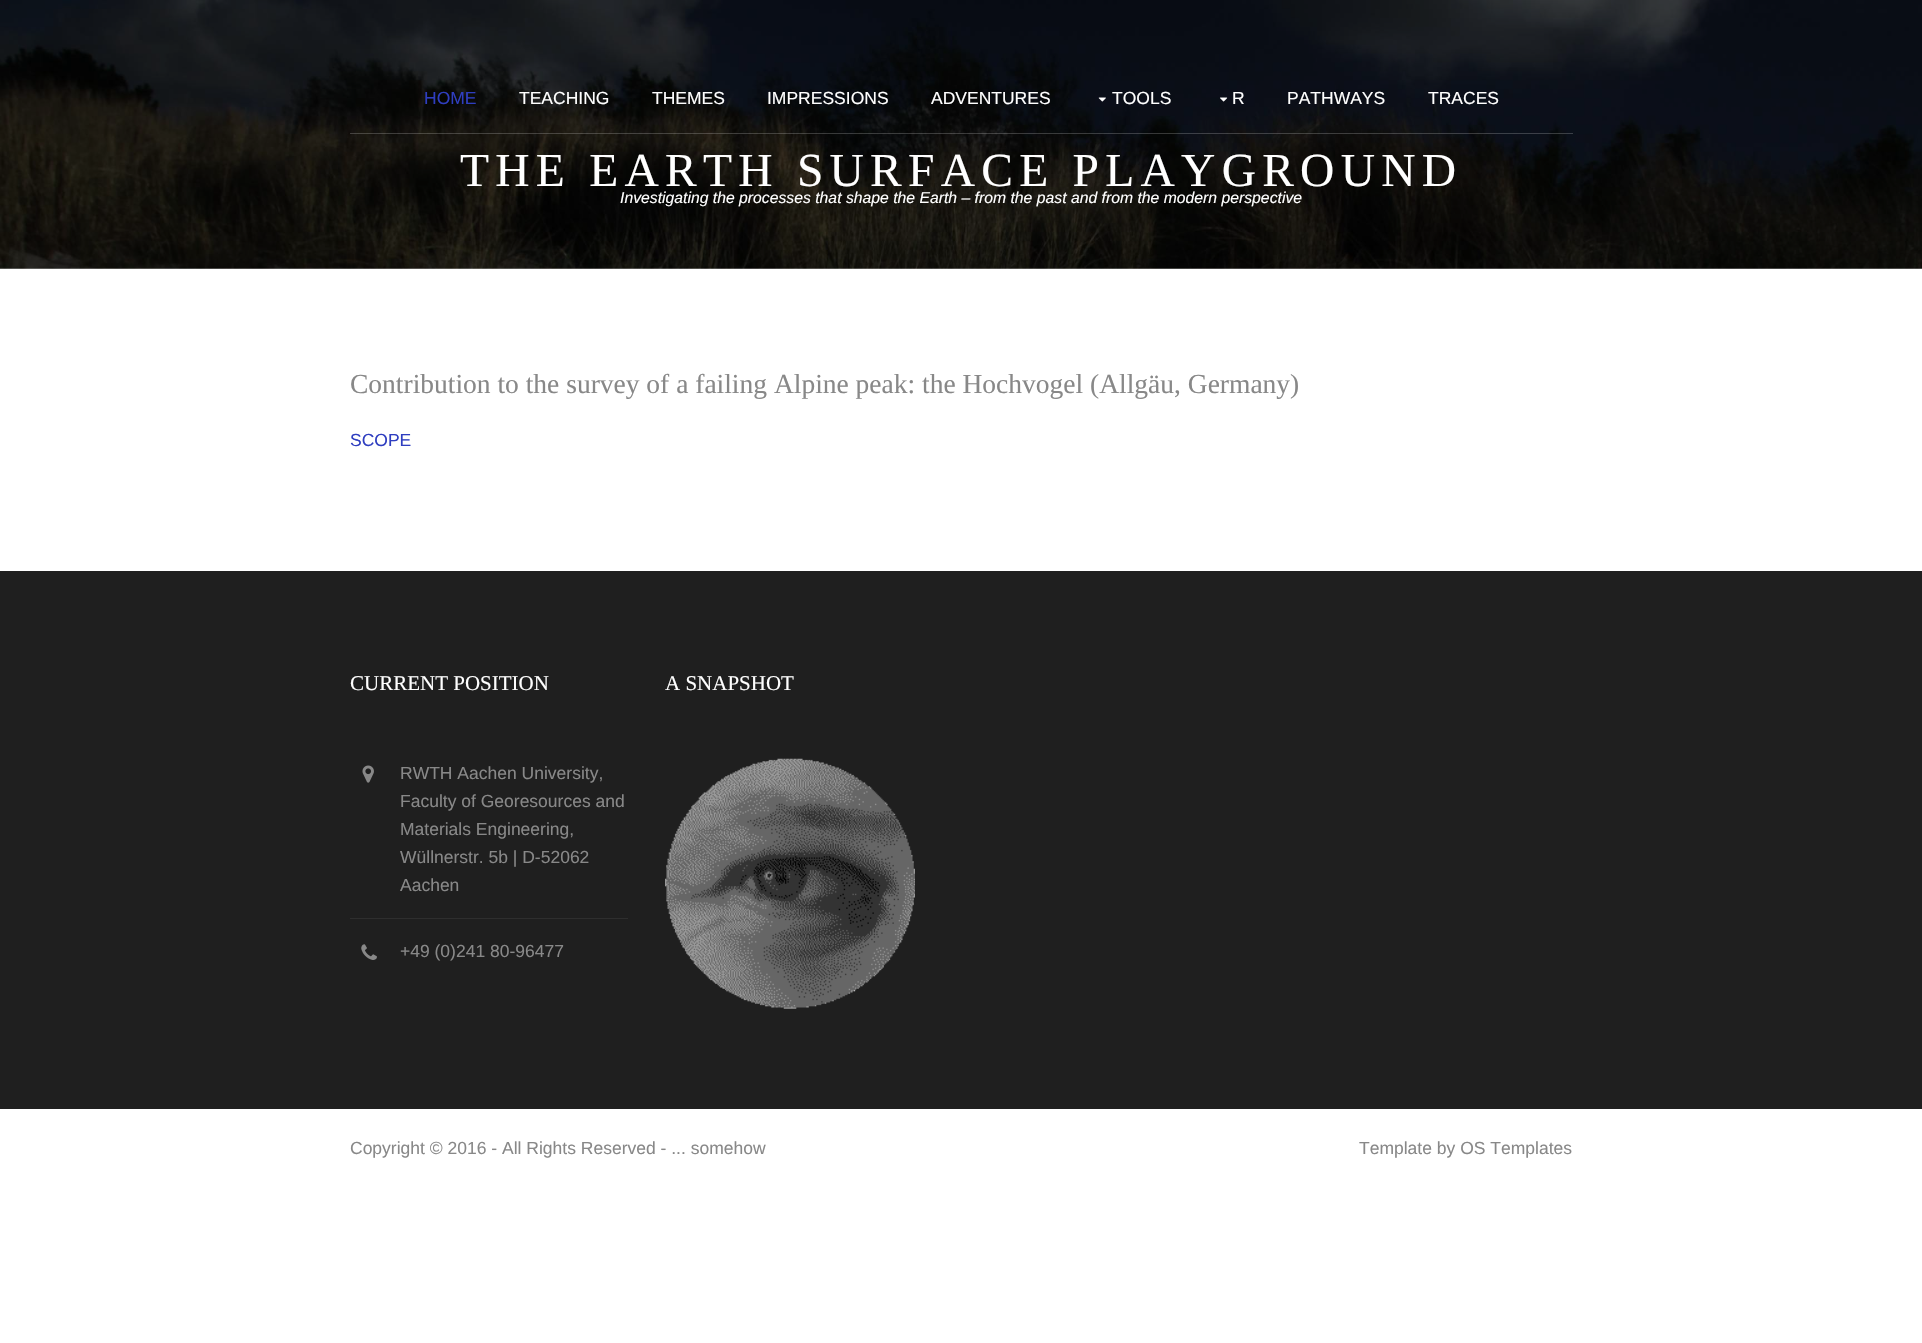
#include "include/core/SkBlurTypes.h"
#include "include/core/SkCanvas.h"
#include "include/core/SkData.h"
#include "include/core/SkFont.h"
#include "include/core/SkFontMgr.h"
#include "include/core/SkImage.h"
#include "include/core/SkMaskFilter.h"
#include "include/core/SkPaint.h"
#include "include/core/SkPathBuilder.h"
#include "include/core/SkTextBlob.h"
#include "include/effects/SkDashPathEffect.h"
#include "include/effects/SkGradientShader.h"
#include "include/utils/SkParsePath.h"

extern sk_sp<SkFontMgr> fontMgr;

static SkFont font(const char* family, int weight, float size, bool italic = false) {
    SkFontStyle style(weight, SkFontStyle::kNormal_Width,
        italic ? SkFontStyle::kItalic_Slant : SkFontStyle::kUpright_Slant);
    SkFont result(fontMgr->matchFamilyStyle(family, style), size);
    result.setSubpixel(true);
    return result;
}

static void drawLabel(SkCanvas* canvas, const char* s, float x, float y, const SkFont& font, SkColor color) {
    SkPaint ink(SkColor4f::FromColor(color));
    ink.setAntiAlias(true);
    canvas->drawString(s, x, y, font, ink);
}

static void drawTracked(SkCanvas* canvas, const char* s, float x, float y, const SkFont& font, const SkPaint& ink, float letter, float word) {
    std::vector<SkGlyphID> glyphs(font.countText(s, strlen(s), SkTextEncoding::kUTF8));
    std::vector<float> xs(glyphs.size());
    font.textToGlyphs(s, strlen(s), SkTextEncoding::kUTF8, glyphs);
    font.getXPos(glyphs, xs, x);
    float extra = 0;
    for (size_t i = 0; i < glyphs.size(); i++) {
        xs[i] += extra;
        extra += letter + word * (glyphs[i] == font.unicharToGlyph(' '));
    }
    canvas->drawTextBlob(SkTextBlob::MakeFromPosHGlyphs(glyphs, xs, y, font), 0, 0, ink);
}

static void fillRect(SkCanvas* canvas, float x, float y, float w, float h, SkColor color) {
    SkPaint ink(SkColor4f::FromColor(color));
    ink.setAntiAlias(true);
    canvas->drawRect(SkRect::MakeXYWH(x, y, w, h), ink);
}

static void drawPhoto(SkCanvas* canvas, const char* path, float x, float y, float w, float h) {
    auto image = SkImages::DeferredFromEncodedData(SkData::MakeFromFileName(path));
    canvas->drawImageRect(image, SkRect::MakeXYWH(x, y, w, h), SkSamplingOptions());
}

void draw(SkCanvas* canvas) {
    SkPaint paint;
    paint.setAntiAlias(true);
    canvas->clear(0xFFFFFFFF);
    drawPhoto(canvas, "assets/img1.png", 0, 0, 1922, 269);
    fillRect(canvas, 350, 133, 1223, 1, 0x33FFFFFF);
    SkFont font1 = font("Liberation Sans", 400, 17.5f);
    drawLabel(canvas, "HOME", 424, 104, font1, 0xFF2F3EC0);
    drawLabel(canvas, "TEACHING", 519, 104, font1, 0xFFFFFFFF);
    drawLabel(canvas, "THEMES", 652, 104, font1, 0xFFFFFFFF);
    drawLabel(canvas, "IMPRESSIONS", 767, 104, font1, 0xFFFFFFFF);
    drawLabel(canvas, "ADVENTURES", 931, 104, font1, 0xFFFFFFFF);
    drawPhoto(canvas, "assets/img2.png", 1098, 97, 8, 5);
    drawLabel(canvas, "TOOLS", 1112, 104, font1, 0xFFFFFFFF);
    drawPhoto(canvas, "assets/img3.png", 1220, 97, 8, 5);
    drawLabel(canvas, "R", 1232, 104, font1, 0xFFFFFFFF);
    drawLabel(canvas, "PATHWAYS", 1287, 104, font1, 0xFFFFFFFF);
    drawLabel(canvas, "TRACES", 1428, 104, font1, 0xFFFFFFFF);
    SkFont font2 = font("Liberation Serif", 400, 47.5f);
    paint.setColor(0xFFFFFFFF);
    drawTracked(canvas, "THE EARTH SURFACE PLAYGROUND", 460, 186, font2, paint, 6.25f, 0);
    SkFont font3 = font("Liberation Sans", 400, 15.75f, true);
    drawLabel(canvas, "Investigating the processes that shape the Earth – from the past and from the modern perspective", 620, 203, font3, 0xFFFFFFFF);
    SkFont font4 = font("Liberation Serif", 400, 27.5f);
    drawLabel(canvas, "Contribution to the survey of a failing Alpine peak: the Hochvogel (Allgäu, Germany)", 350, 393, font4, 0xFF888888);
    drawLabel(canvas, "SCOPE", 350, 446, font1, 0xFF2F3EC0);
    fillRect(canvas, 0, 571, 1922, 538, 0xFF1F1F1F);
    SkFont font5 = font("Liberation Serif", 400, 21);
    drawLabel(canvas, "CURRENT POSITION", 350, 690, font5, 0xFFFFFFFF);
    fillRect(canvas, 350, 918, 278, 1, 0xFF2E2E2E);
    drawPhoto(canvas, "assets/img4.png", 362, 765, 12, 18);
    drawLabel(canvas, "RWTH Aachen University,", 400, 779, font1, 0xFF888888);
    drawLabel(canvas, "Faculty of Georesources and", 400, 807, font1, 0xFF888888);
    drawLabel(canvas, "Materials Engineering,", 400, 835, font1, 0xFF888888);
    drawLabel(canvas, "Wüllnerstr. 5b | D-52062", 400, 863, font1, 0xFF888888);
    drawLabel(canvas, "Aachen", 400, 891, font1, 0xFF888888);
    drawPhoto(canvas, "assets/img5.png", 361, 944, 16, 16);
    drawLabel(canvas, "+49 (0)241 80-96477", 400, 957, font1, 0xFF888888);
    drawLabel(canvas, "A SNAPSHOT", 665, 690, font5, 0xFFFFFFFF);
    drawPhoto(canvas, "assets/img6.png", 665, 758, 250, 251);
    drawLabel(canvas, "Copyright © 2016 - All Rights Reserved - ... somehow", 350, 1154, font1, 0xFF888888);
    drawLabel(canvas, "Template by OS Templates", 1359, 1154, font1, 0xFF888888);
}
